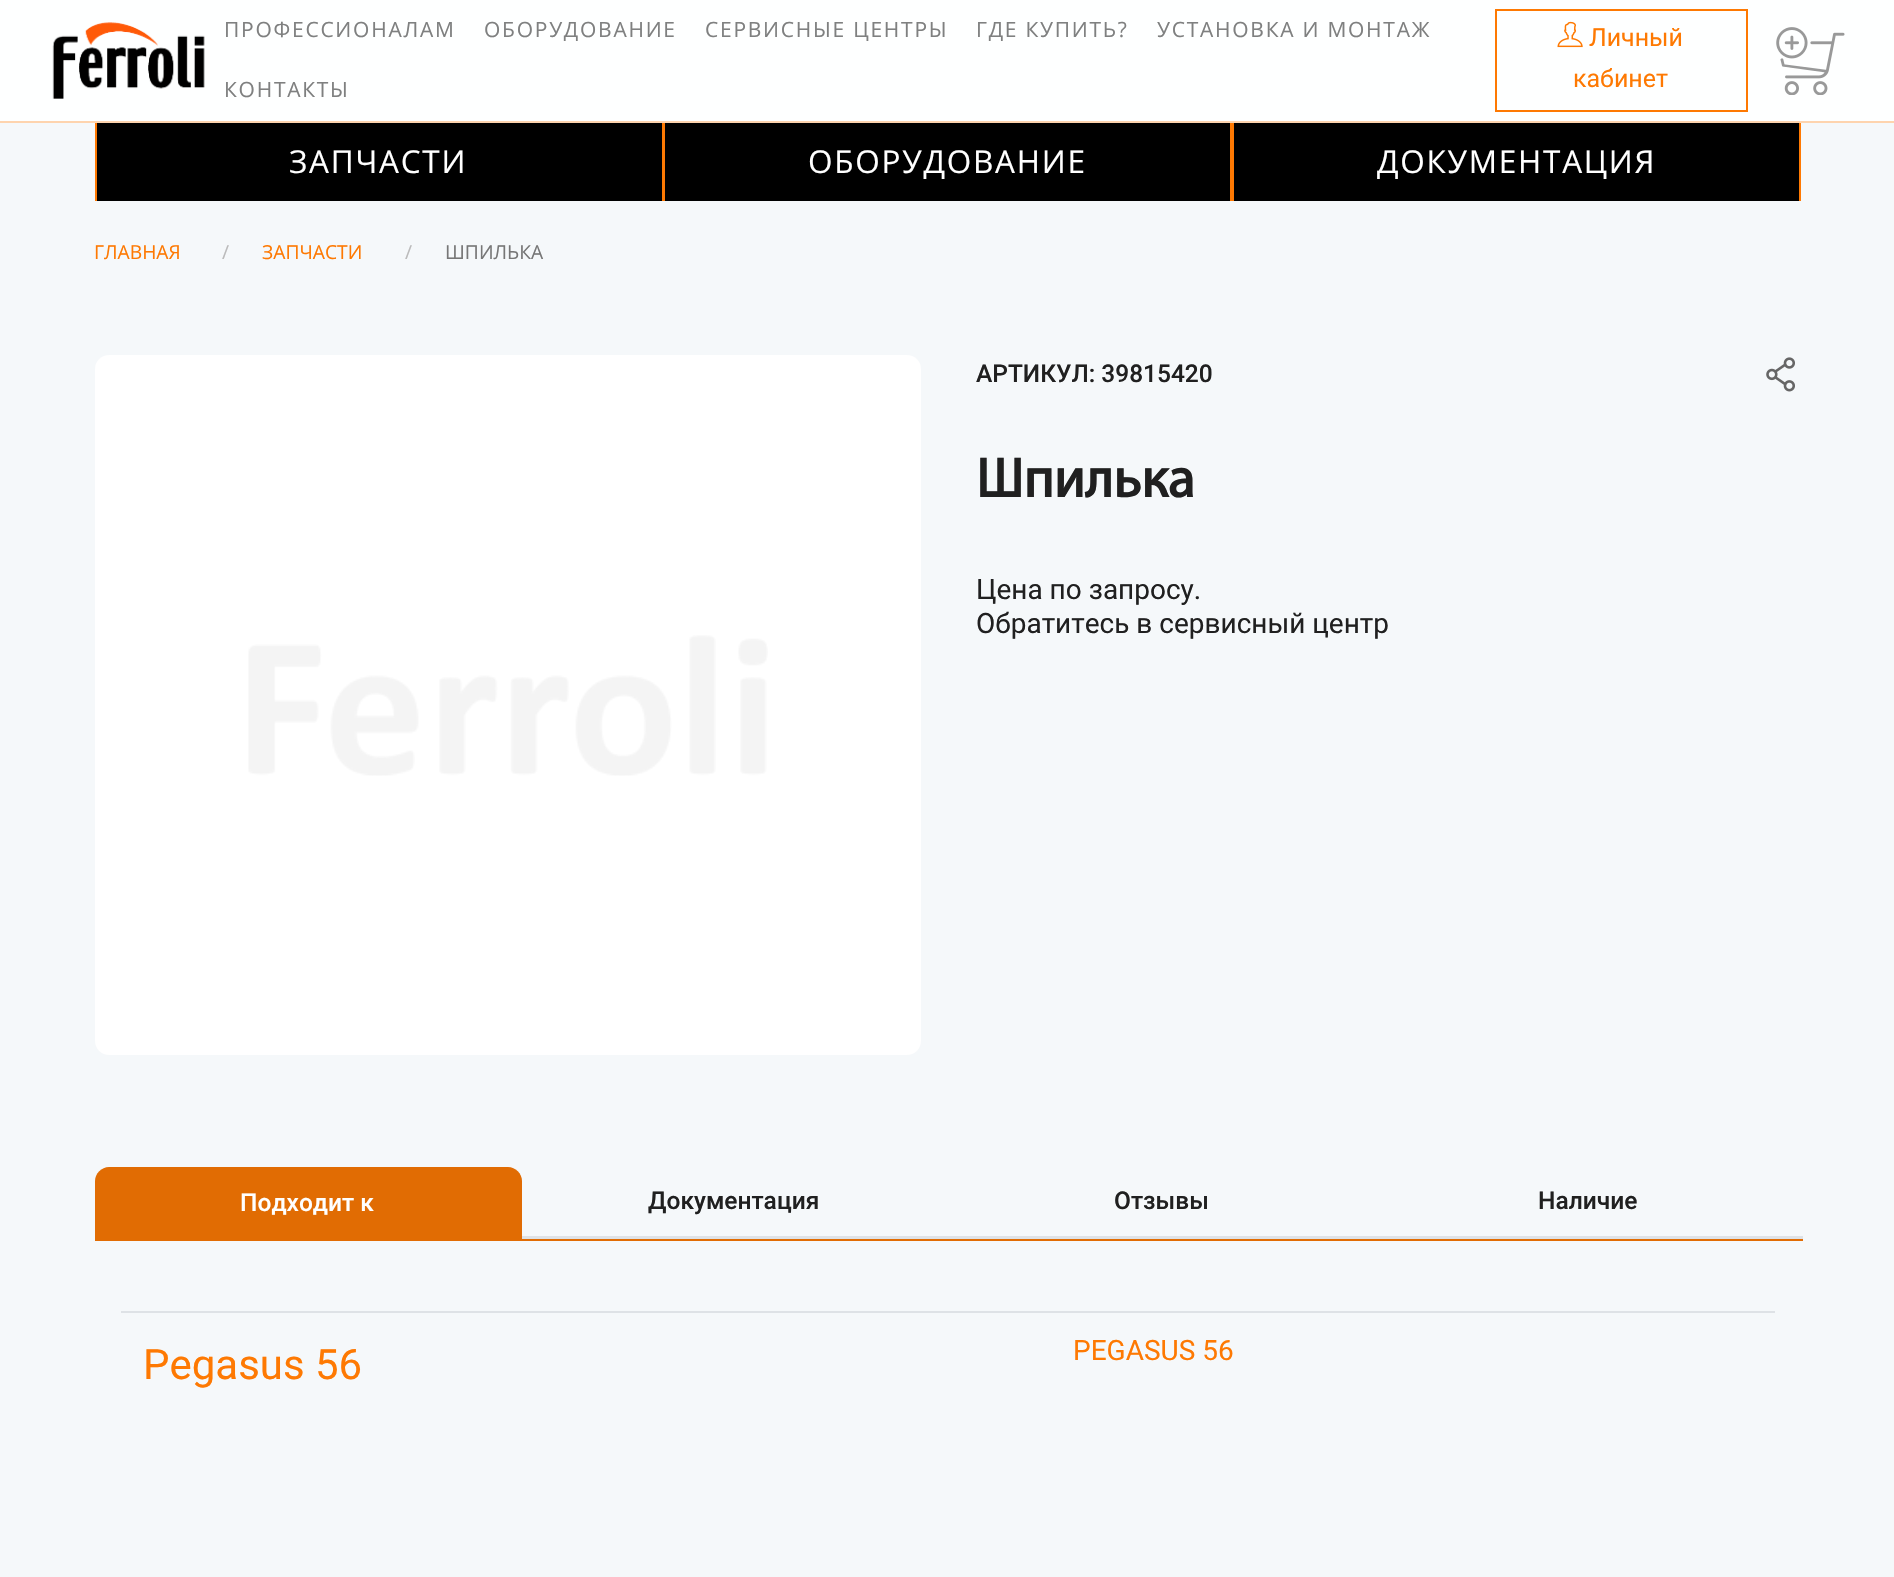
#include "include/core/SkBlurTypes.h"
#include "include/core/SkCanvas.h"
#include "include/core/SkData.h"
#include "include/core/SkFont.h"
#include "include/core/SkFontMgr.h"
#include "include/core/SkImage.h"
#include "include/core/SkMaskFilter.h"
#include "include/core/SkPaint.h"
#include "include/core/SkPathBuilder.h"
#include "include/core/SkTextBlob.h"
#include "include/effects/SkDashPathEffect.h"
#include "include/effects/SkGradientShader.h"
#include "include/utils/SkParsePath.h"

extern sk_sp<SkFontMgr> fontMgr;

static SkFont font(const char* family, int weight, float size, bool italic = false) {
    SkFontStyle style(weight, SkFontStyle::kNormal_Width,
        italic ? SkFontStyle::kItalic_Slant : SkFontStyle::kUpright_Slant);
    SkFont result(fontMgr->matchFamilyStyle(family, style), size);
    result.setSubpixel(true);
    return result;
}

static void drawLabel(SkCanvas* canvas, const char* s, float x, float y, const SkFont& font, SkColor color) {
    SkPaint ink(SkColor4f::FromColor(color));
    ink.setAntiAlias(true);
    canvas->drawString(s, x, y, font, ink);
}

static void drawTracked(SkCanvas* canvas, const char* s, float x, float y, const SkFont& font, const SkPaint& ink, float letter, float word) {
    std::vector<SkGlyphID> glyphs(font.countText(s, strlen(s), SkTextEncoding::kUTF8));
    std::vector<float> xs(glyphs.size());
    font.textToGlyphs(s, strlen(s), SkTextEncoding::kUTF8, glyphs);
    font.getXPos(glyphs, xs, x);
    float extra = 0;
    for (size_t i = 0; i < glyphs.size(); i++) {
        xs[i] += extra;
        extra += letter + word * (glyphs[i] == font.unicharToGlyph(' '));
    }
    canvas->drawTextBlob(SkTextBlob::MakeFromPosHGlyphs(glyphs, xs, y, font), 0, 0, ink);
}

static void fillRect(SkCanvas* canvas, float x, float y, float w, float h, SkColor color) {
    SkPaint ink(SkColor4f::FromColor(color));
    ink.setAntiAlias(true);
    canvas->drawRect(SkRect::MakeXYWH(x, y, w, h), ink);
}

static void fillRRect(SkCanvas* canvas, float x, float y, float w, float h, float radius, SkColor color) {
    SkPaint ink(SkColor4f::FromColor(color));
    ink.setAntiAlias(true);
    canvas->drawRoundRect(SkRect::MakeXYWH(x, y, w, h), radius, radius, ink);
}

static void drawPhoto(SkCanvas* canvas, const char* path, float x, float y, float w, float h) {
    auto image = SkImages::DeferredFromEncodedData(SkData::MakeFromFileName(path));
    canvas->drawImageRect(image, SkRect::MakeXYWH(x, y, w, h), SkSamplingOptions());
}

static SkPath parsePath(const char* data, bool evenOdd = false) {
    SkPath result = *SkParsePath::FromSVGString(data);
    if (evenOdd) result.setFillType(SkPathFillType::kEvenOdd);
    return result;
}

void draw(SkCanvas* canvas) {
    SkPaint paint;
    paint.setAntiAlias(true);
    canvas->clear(0xFFF5F8FA);
    fillRect(canvas, 0, 0, 1894, 121, 0xFFFEFFFF);
    fillRect(canvas, 0, 121, 1894, 2, 0xFFFED4AE);
    drawPhoto(canvas, "assets/img1.png", 52, 22, 153, 77);
    SkFont font1 = font("Open Sans", 400, 21);
    paint.setColor(0xFF7F8080);
    drawTracked(canvas, "ПРОФЕССИОНАЛАМ", 224, 37, font1, paint, 1.75f, 0);
    drawTracked(canvas, "ОБОРУДОВАНИЕ", 484, 37, font1, paint, 1.75f, 0);
    drawTracked(canvas, "СЕРВИСНЫЕ ЦЕНТРЫ", 705, 37, font1, paint, 1.75f, 0);
    drawTracked(canvas, "ГДЕ КУПИТЬ?", 976, 37, font1, paint, 1.75f, 0);
    drawTracked(canvas, "УСТАНОВКА И МОНТАЖ", 1157, 37, font1, paint, 1.75f, 0);
    drawTracked(canvas, "КОНТАКТЫ", 224, 97, font1, paint, 1.75f, 0);
    paint.setStroke(true);
    paint.setStrokeWidth(2);
    paint.setColor(0xFFFE7902);
    canvas->drawRect(SkRect::MakeXYWH(1496, 10, 251, 101), paint);
    drawPhoto(canvas, "assets/img2.png", 1557, 21, 26, 27);
    SkFont font2 = font("Roboto", 400, 25);
    drawLabel(canvas, "Личный", 1589, 46, font2, 0xFFFE7902);
    drawLabel(canvas, "кабинет", 1573, 87, font2, 0xFFFE7902);
    drawPhoto(canvas, "assets/img3.png", 1776, 27, 69, 68);
    fillRect(canvas, 97, 123, 565, 78, 0xFF000000);
    fillRect(canvas, 662, 123, 3, 78, 0xFFFE7902);
    fillRect(canvas, 95, 123, 2, 78, 0xFFFE7902);
    SkFont font3 = font("Open Sans", 400, 31.5f);
    paint.setStroke(false);
    paint.setColor(0xFFFFFFFF);
    drawTracked(canvas, "ЗАПЧАСТИ", 289, 173, font3, paint, 1.75f, 0);
    fillRect(canvas, 665, 123, 565, 78, 0xFF000000);
    fillRect(canvas, 1230, 123, 4, 78, 0xFFFE7902);
    drawTracked(canvas, "ОБОРУДОВАНИЕ", 808, 173, font3, paint, 1.75f, 0);
    fillRect(canvas, 1234, 123, 565, 78, 0xFF000000);
    fillRect(canvas, 1799, 123, 2, 78, 0xFFFE7902);
    drawTracked(canvas, "ДОКУМЕНТАЦИЯ", 1377, 173, font3, paint, 1.75f, 0);
    SkFont font4 = font("Open Sans", 400, 19.25f);
    drawLabel(canvas, "ГЛАВНАЯ", 94, 259, font4, 0xFFFE7902);
    drawLabel(canvas, "/", 222, 259, font4, 0xFFBBBBBB);
    drawLabel(canvas, "ЗАПЧАСТИ", 262, 259, font4, 0xFFFE7902);
    drawLabel(canvas, "/", 405, 259, font4, 0xFFBBBBBB);
    drawLabel(canvas, "ШПИЛЬКА", 445, 259, font4, 0xFF777777);
    fillRRect(canvas, 95, 355, 826, 700, 14, 0xFFFFFFFF);
    drawPhoto(canvas, "assets/img4.png", 248, 635, 520, 141);
    SkFont font5 = font("Roboto", 500, 24.5f);
    drawLabel(canvas, "АРТИКУЛ: 39815420", 976, 382, font5, 0xFF202020);
    drawPhoto(canvas, "assets/img5.png", 1766, 357, 29, 35);
    SkFont font6 = font("Myriad", 700, 56);
    drawLabel(canvas, "Шпилька", 976, 497, font6, 0xFF202020);
    SkFont font7 = font("Roboto", 400, 28);
    drawLabel(canvas, "Цена по запросу.", 976, 599, font7, 0xFF202020);
    drawLabel(canvas, "Обратитесь в сервисный центр", 976, 633, font7, 0xFF202020);
    fillRect(canvas, 95, 1239, 1708, 2, 0xFFE16C03);
    paint.setColor(0xFFE16C03);
    canvas->drawPath(parsePath("M109 1167H508C515.5 1167 522 1173.5 522 1181V1239H95V1181C95 1173.5 101.5 1167 109 1167Z"), paint);
    drawLabel(canvas, "Подходит к", 240, 1211, font5, 0xFFFFFFFF);
    fillRect(canvas, 522, 1236, 1281, 3, 0xFFDEE2E6);
    drawLabel(canvas, "Документация", 648, 1209, font5, 0xFF202020);
    drawLabel(canvas, "Отзывы", 1114, 1209, font5, 0xFF202020);
    drawLabel(canvas, "Наличие", 1538, 1209, font5, 0xFF202020);
    SkFont font8 = font("Roboto", 400, 42);
    drawLabel(canvas, "Pegasus 56", 143, 1379, font8, 0xFFFE7902);
    fillRect(canvas, 121, 1311, 1654, 2, 0xFFDEE2E6);
    drawLabel(canvas, "PEGASUS 56", 1073, 1360, font7, 0xFFFE7902);
}
